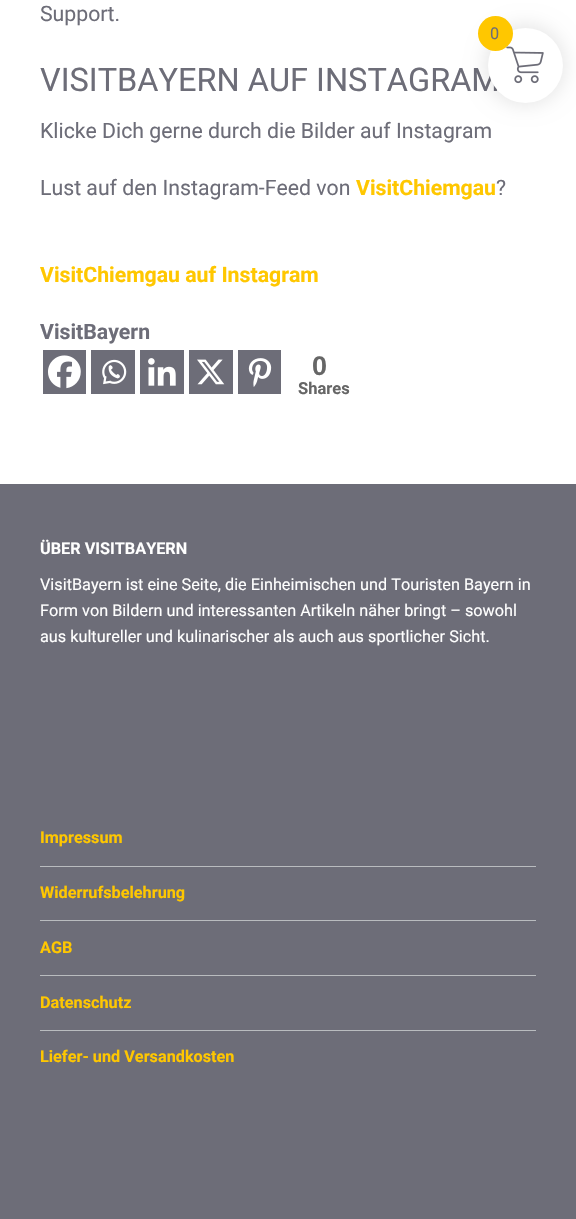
#include "include/core/SkBlurTypes.h"
#include "include/core/SkCanvas.h"
#include "include/core/SkData.h"
#include "include/core/SkFont.h"
#include "include/core/SkFontMgr.h"
#include "include/core/SkImage.h"
#include "include/core/SkMaskFilter.h"
#include "include/core/SkPaint.h"
#include "include/core/SkPathBuilder.h"
#include "include/core/SkTextBlob.h"
#include "include/effects/SkDashPathEffect.h"
#include "include/effects/SkGradientShader.h"
#include "include/utils/SkParsePath.h"

extern sk_sp<SkFontMgr> fontMgr;

static SkFont font(const char* family, int weight, float size, bool italic = false) {
    SkFontStyle style(weight, SkFontStyle::kNormal_Width,
        italic ? SkFontStyle::kItalic_Slant : SkFontStyle::kUpright_Slant);
    SkFont result(fontMgr->matchFamilyStyle(family, style), size);
    result.setSubpixel(true);
    return result;
}

static void drawLabel(SkCanvas* canvas, const char* s, float x, float y, const SkFont& font, SkColor color) {
    SkPaint ink(SkColor4f::FromColor(color));
    ink.setAntiAlias(true);
    canvas->drawString(s, x, y, font, ink);
}

static void fillRect(SkCanvas* canvas, float x, float y, float w, float h, SkColor color) {
    SkPaint ink(SkColor4f::FromColor(color));
    ink.setAntiAlias(true);
    canvas->drawRect(SkRect::MakeXYWH(x, y, w, h), ink);
}

static void drawPhoto(SkCanvas* canvas, const char* path, float x, float y, float w, float h) {
    auto image = SkImages::DeferredFromEncodedData(SkData::MakeFromFileName(path));
    canvas->drawImageRect(image, SkRect::MakeXYWH(x, y, w, h), SkSamplingOptions());
}

void draw(SkCanvas* canvas) {
    SkPaint paint;
    paint.setAntiAlias(true);
    canvas->clear(0xFF6D6D78);
    fillRect(canvas, 0, 0, 576, 484, 0xFFFFFFFF);
    SkFont font1 = font("Roboto", 400, 21.25f);
    drawLabel(canvas, "Support.", 40, 21, font1, 0xFF6D6D78);
    SkFont font2 = font("Roboto", 400, 32.5f);
    drawLabel(canvas, "VISITBAYERN AUF INSTAGRAM", 40, 91, font2, 0xFF6D6D78);
    drawLabel(canvas, "Klicke Dich gerne durch die Bilder auf Instagram", 40, 138, font1, 0xFF6D6D78);
    drawLabel(canvas, "Lust auf den Instagram-Feed von", 40, 195, font1, 0xFF6D6D78);
    SkFont font3 = font("Roboto", 700, 21.25f);
    drawLabel(canvas, "VisitChiemgau", 356, 195, font3, 0xFFFFC700);
    drawLabel(canvas, "?", 496, 195, font1, 0xFF6D6D78);
    drawLabel(canvas, "VisitChiemgau auf Instagram", 40, 282, font3, 0xFFFFC700);
    drawLabel(canvas, "VisitBayern", 40, 339, font3, 0xFF6D6D78);
    fillRect(canvas, 43, 350, 43, 44, 0xFF6D6D78);
    drawPhoto(canvas, "assets/img1.png", 48, 355, 33, 34);
    fillRect(canvas, 91, 350, 44, 44, 0xFF6D6D78);
    drawPhoto(canvas, "assets/img2.png", 102, 359, 25, 26);
    fillRect(canvas, 140, 350, 44, 44, 0xFF6D6D78);
    drawPhoto(canvas, "assets/img3.png", 148, 358, 28, 28);
    fillRect(canvas, 189, 350, 44, 44, 0xFF6D6D78);
    drawPhoto(canvas, "assets/img4.png", 197, 359, 28, 26);
    fillRect(canvas, 238, 350, 43, 44, 0xFF6D6D78);
    drawPhoto(canvas, "assets/img5.png", 248, 358, 24, 29);
    SkFont font4 = font("Liberation Sans", 700, 27);
    drawLabel(canvas, "0", 312, 375, font4, 0xFF666666);
    SkFont font5 = font("Roboto", 700, 16.5f);
    drawLabel(canvas, "Shares", 298, 394, font5, 0xFF666666);
    SkFont font6 = font("Roboto", 700, 16.25f);
    drawLabel(canvas, "ÜBER VISITBAYERN", 40, 554, font6, 0xFFFFFFFF);
    SkFont font7 = font("Roboto", 400, 16.25f);
    drawLabel(canvas, "VisitBayern ist eine Seite, die Einheimischen und Touristen Bayern in", 40, 590, font7, 0xFFFFFFFF);
    drawLabel(canvas, "Form von Bildern und interessanten Artikeln näher bringt – sowohl", 40, 616, font7, 0xFFFFFFFF);
    drawLabel(canvas, "aus kultureller und kulinarischer als auch aus sportlicher Sicht.", 40, 642, font7, 0xFFFFFFFF);
    fillRect(canvas, 40, 866, 496, 1, 0xFFB9BCBF);
    drawLabel(canvas, "Impressum", 40, 843, font6, 0xFFFFC700);
    fillRect(canvas, 40, 920, 496, 1, 0xFFB9BCBF);
    drawLabel(canvas, "Widerrufsbelehrung", 40, 898, font6, 0xFFFFC700);
    fillRect(canvas, 40, 975, 496, 1, 0xFFB9BCBF);
    drawLabel(canvas, "AGB", 40, 953, font6, 0xFFFFC700);
    fillRect(canvas, 40, 1030, 496, 1, 0xFFB9BCBF);
    drawLabel(canvas, "Datenschutz", 40, 1008, font6, 0xFFFFC700);
    drawLabel(canvas, "Liefer- und Versandkosten", 40, 1062, font6, 0xFFFFC700);
    paint.setColor(0x1A000000);
    paint.setMaskFilter(SkMaskFilter::MakeBlur(kNormal_SkBlurStyle, 9.5f));
    canvas->drawRoundRect(SkRect::MakeXYWH(485, 25, 80, 80), 40, 40, paint);
    paint.setMaskFilter(nullptr);
    paint.setColor(0xFFFFFFFF);
    canvas->drawCircle(525.5f, 65.5f, 37.5f, paint);
    drawPhoto(canvas, "assets/img6.png", 506, 46, 38, 38);
    paint.setColor(0xFFFFC700);
    canvas->drawCircle(495.5f, 33.5f, 17.5f, paint);
    drawLabel(canvas, "0", 490, 39, font7, 0xFF6D6D78);
}
